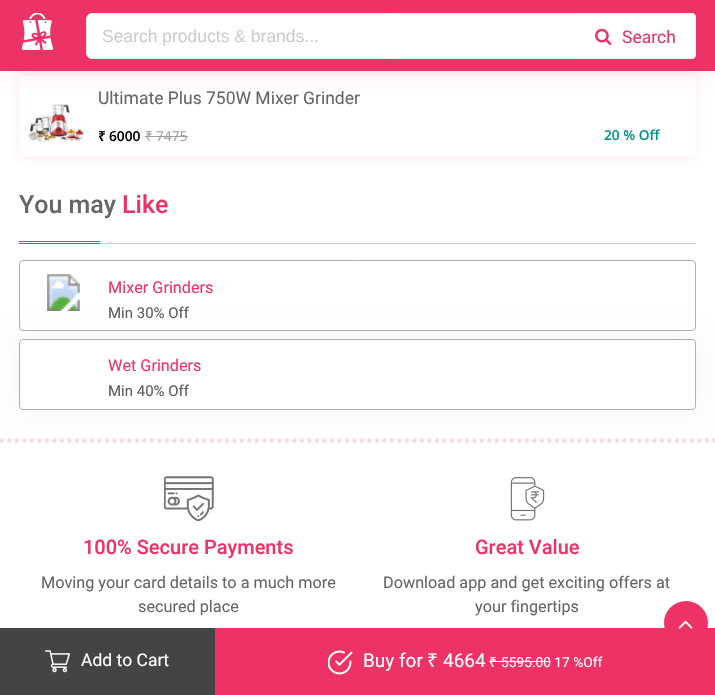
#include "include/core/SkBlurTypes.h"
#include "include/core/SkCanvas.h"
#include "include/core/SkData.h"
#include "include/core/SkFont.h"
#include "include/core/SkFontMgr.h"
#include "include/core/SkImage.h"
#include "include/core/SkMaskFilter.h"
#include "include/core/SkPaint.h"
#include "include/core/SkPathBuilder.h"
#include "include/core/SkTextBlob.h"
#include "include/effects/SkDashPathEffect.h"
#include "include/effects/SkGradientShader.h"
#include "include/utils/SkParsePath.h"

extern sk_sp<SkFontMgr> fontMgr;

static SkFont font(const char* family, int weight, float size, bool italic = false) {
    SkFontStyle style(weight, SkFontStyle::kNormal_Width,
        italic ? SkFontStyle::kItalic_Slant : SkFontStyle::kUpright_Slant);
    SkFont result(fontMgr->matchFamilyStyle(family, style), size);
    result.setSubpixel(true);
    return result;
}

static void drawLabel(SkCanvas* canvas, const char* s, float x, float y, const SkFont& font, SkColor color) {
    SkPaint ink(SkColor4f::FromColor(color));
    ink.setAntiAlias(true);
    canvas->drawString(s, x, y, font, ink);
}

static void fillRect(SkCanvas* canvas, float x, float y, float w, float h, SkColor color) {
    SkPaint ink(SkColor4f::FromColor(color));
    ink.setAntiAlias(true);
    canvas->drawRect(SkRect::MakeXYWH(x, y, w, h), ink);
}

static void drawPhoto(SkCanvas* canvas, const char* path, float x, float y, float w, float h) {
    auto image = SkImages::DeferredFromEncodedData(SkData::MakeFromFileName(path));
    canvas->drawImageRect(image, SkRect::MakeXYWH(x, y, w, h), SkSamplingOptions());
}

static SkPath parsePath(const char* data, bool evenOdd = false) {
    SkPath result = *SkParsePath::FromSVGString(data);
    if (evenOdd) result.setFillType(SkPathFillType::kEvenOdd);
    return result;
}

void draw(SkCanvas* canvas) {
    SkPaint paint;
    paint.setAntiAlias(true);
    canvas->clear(0xFFFFFFFF);
    canvas->save();
    canvas->clipPath(parsePath("M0 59H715V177H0ZM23 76H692C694 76 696 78 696 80V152C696 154 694 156 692 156H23C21 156 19 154 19 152V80C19 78 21 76 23 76Z", true), true);
    paint.setColor(0x1AED3365);
    paint.setMaskFilter(SkMaskFilter::MakeBlur(kNormal_SkBlurStyle, 6));
    canvas->drawRoundRect(SkRect::MakeXYWH(19, 78, 677, 80), 4, 4, paint);
    paint.setMaskFilter(nullptr);
    canvas->restore();
    drawPhoto(canvas, "assets/img3.png", 28, 104, 57, 39);
    paint.setMaskFilter(SkMaskFilter::MakeBlur(kNormal_SkBlurStyle, 12.5f));
    canvas->drawRect(SkRect::MakeXYWH(0, 4, 715, 71), paint);
    paint.setMaskFilter(nullptr);
    paint.setMaskFilter(SkMaskFilter::MakeBlur(kNormal_SkBlurStyle, 6));
    canvas->drawRoundRect(SkRect::MakeXYWH(19, -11, 677, 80), 4, 4, paint);
    paint.setMaskFilter(nullptr);
    fillRect(canvas, 0, 0, 715, 71, 0xFFED3365);
    drawPhoto(canvas, "assets/img1.png", 21, 13, 33, 37);
    paint.setColor(0xFFFFFFFF);
    canvas->drawPath(parsePath("M92 13.5H689.5V58.5H92C89 58.5 86.5 56 86.5 53V19C86.5 16 89 13.5 92 13.5Z"), paint);
    paint.setStroke(true);
    paint.setStrokeWidth(1);
    paint.setColor(0xFFEDEDED);
    canvas->drawPath(parsePath("M92 13.5H689.5V58.5H92C89 58.5 86.5 56 86.5 53V19C86.5 16 89 13.5 92 13.5Z"), paint);
    SkFont font1 = font("Liberation Sans", 400, 17.5f);
    drawLabel(canvas, "Search products & brands...", 102, 42, font1, 0xFFCCCCCC);
    paint.setStroke(false);
    paint.setColor(0xFFFFFFFF);
    canvas->drawPath(parsePath("M575 13H692C694 13 696 15 696 17V55C696 57 694 59 692 59H575Z"), paint);
    drawPhoto(canvas, "assets/img2.png", 595, 28, 17, 17);
    SkFont font2 = font("Roboto", 400, 17.5f);
    drawLabel(canvas, "Search", 622, 43, font2, 0xFFED3365);
    drawLabel(canvas, "Ultimate Plus 750W Mixer Grinder", 98, 104, font2, 0xFF666666);
    SkFont font3 = font("Noto Sans", 600, 13.75f);
    drawLabel(canvas, "₹", 98, 141, font3, 0xFF000000);
    SkFont font4 = font("Open Sans", 600, 13.75f);
    drawLabel(canvas, "6000", 109, 141, font4, 0xFF000000);
    SkFont font5 = font("Noto Sans", 400, 13.75f);
    drawLabel(canvas, "₹", 145, 141, font5, 0xFF9E9E9E);
    SkFont font6 = font("Open Sans", 400, 13.75f);
    drawLabel(canvas, "7475", 156, 141, font6, 0xFF9E9E9E);
    fillRect(canvas, 145, 136, 43, 1, 0xFF9E9E9E);
    drawLabel(canvas, "20 % Off", 604, 140, font4, 0xFF009688);
    fillRect(canvas, 0, 628, 215, 67, 0xFF444444);
    drawPhoto(canvas, "assets/img4.png", 45, 650, 25, 23);
    drawLabel(canvas, "Add to Cart", 81, 666, font2, 0xFFFFFFFF);
    fillRect(canvas, 215, 628, 500, 67, 0xFFED3365);
    drawPhoto(canvas, "assets/img5.png", 328, 650, 25, 25);
    SkFont font7 = font("Roboto", 400, 19);
    drawLabel(canvas, "Buy for", 363, 667, font7, 0xFFFFFFFF);
    SkFont font8 = font("Noto Sans", 400, 19);
    drawLabel(canvas, "₹", 427, 667, font8, 0xFFFFFFFF);
    drawLabel(canvas, "4664", 443, 667, font7, 0xFFFFFFFF);
    drawLabel(canvas, "₹", 489, 667, font5, 0xFFFFFFFF);
    fillRect(canvas, 489, 661, 61, 1, 0xFFFFFFFF);
    SkFont font9 = font("Roboto", 400, 13.75f);
    drawLabel(canvas, "5595.00 17 %Off", 501, 667, font9, 0xFFFFFFFF);
    SkFont font10 = font("Roboto", 500, 25);
    drawLabel(canvas, "You may", 19, 213, font10, 0xFF666666);
    drawLabel(canvas, "Like", 122, 213, font10, 0xFFED3365);
    fillRect(canvas, 100, 243, 596, 1, 0xFFCCCCCC);
    canvas->drawPath(parsePath("M19 241L111 242H125C127 242 127 243 125 243H117L19 244Z"), paint);
    fillRect(canvas, 19, 241, 81, 1, 0xFFED3365);
    fillRect(canvas, 19, 243, 81, 1, 0xFFED3365);
    paint.setStroke(true);
    paint.setColor(0xFFAFAFAF);
    canvas->drawRoundRect(SkRect::MakeXYWH(19.5f, 260.5f, 676, 70), 3.5f, 3.5f, paint);
    drawPhoto(canvas, "assets/img6.png", 47, 274, 33, 37);
    SkFont font11 = font("Roboto", 400, 16.25f);
    drawLabel(canvas, "Mixer Grinders", 108, 293, font11, 0xFFED3365);
    paint.setStrokeWidth(3.8f);
    paint.setColor(0xFFFBD6E0);
    paint.setPathEffect(SkDashPathEffect::Make({{3.75f, 3.75f}}, 0));
    canvas->drawPath(parsePath("M0 440.5H715"), paint);
    paint.setPathEffect(nullptr);
    paint.setStroke(false);
    paint.setColor(0x0D000000);
    paint.setMaskFilter(SkMaskFilter::MakeBlur(kNormal_SkBlurStyle, 12.5f));
    canvas->drawRoundRect(SkRect::MakeXYWH(19, 339, 677, 71), 4, 4, paint);
    paint.setMaskFilter(nullptr);
    SkFont font12 = font("Roboto", 400, 15);
    drawLabel(canvas, "Min 30% Off", 108, 318, font12, 0xFF5D5D5D);
    paint.setColor(0xFFFFFFFF);
    canvas->drawRoundRect(SkRect::MakeXYWH(19.5f, 339.5f, 676, 70), 3.5f, 3.5f, paint);
    paint.setStroke(true);
    paint.setStrokeWidth(1);
    paint.setColor(0xFFAFAFAF);
    canvas->drawRoundRect(SkRect::MakeXYWH(19.5f, 339.5f, 676, 70), 3.5f, 3.5f, paint);
    drawLabel(canvas, "Wet Grinders", 108, 371, font11, 0xFFED3365);
    drawLabel(canvas, "Min 40% Off", 108, 396, font12, 0xFF5D5D5D);
    drawPhoto(canvas, "assets/img7.png", 164, 476, 50, 46);
    SkFont font13 = font("Roboto", 500, 20);
    drawLabel(canvas, "100% Secure Payments", 83, 554, font13, 0xFFED3365);
    drawLabel(canvas, "Moving your card details to a much more", 41, 588, font11, 0xFF666666);
    drawLabel(canvas, "secured place", 138, 612, font11, 0xFF666666);
    drawPhoto(canvas, "assets/img8.png", 510, 477, 35, 44);
    drawLabel(canvas, "Great Value", 475, 554, font13, 0xFFED3365);
    drawLabel(canvas, "Download app and get exciting offers at", 383, 588, font11, 0xFF666666);
    drawLabel(canvas, "your fingertips", 475, 612, font11, 0xFF666666);
    paint.setStroke(false);
    paint.setColor(0xFFED3365);
    canvas->drawCircle(686, 623, 22, paint);
    drawPhoto(canvas, "assets/img9.png", 678, 620, 15, 9);
}
